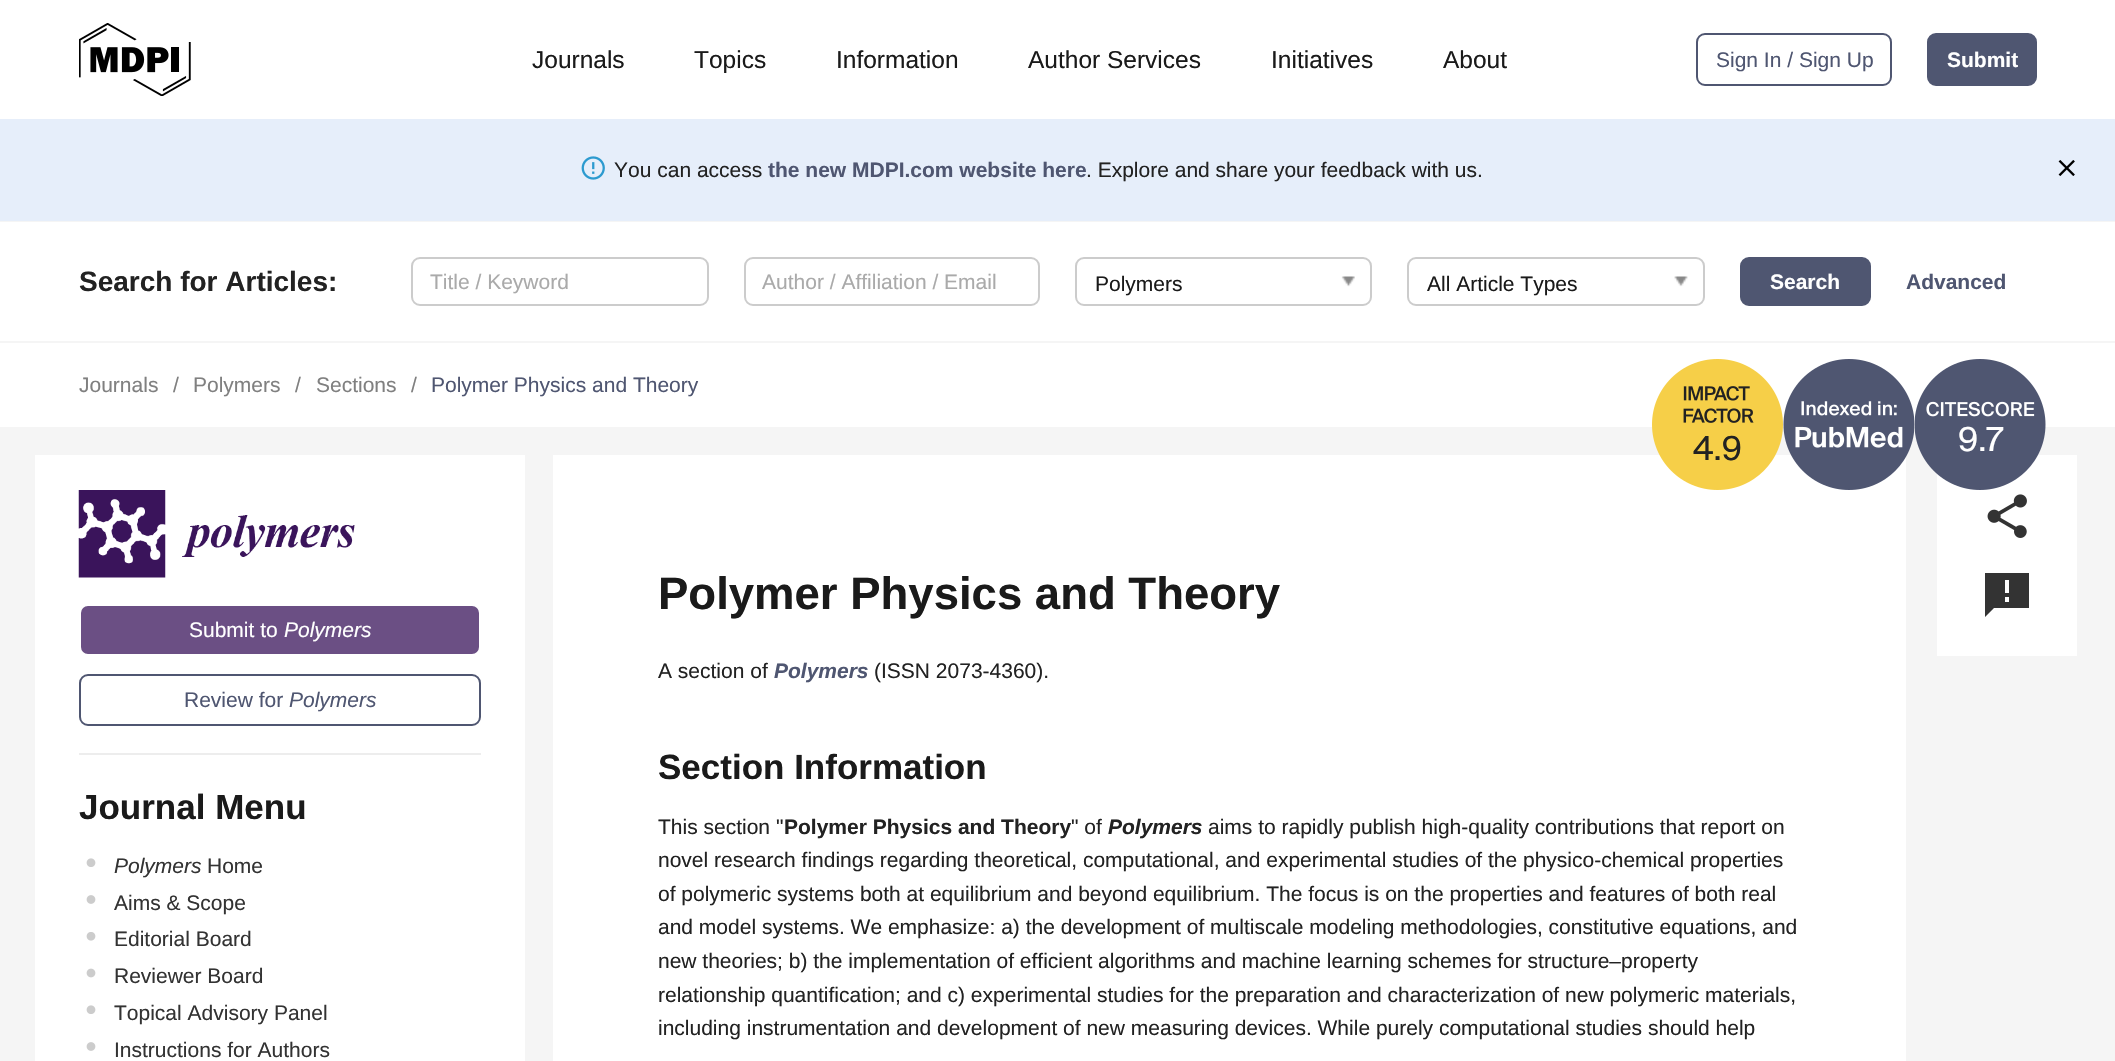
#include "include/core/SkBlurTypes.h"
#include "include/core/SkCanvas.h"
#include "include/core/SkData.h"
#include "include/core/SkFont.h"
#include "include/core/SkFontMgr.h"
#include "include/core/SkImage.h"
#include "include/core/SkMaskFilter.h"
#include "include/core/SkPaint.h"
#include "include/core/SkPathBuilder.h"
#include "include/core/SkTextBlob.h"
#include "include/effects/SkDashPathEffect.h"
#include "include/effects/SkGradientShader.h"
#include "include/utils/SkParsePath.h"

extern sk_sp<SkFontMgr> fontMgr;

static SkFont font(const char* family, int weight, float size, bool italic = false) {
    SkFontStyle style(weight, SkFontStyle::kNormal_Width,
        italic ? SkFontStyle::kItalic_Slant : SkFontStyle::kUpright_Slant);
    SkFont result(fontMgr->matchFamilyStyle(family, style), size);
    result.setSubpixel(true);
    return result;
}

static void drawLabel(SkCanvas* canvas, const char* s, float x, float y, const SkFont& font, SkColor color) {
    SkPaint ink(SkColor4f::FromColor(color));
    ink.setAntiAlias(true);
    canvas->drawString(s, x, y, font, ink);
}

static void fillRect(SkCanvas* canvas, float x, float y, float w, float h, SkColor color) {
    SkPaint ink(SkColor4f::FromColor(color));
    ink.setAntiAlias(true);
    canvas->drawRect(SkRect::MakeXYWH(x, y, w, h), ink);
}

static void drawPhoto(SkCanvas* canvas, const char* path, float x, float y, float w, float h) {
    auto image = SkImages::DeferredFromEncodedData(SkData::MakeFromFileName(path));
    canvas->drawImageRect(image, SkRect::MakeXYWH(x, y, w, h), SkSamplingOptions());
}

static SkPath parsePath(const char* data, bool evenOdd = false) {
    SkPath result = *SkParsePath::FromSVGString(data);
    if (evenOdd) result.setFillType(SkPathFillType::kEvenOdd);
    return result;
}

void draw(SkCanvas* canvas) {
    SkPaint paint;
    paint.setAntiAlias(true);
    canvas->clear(0xFFF5F5F5);
    fillRect(canvas, 0, 0, 2115, 119, 0xFFFFFFFF);
    drawPhoto(canvas, "assets/img1.png", 79, 23, 112, 73);
    SkFont font1 = font("Liberation Sans", 400, 24.5f);
    drawLabel(canvas, "Journals", 532, 68, font1, 0xFF1A1A1A);
    drawLabel(canvas, "Topics", 694, 68, font1, 0xFF1A1A1A);
    drawLabel(canvas, "Information", 836, 68, font1, 0xFF1A1A1A);
    drawLabel(canvas, "Author Services", 1028, 68, font1, 0xFF1A1A1A);
    drawLabel(canvas, "Initiatives", 1271, 68, font1, 0xFF1A1A1A);
    drawLabel(canvas, "About", 1443, 68, font1, 0xFF1A1A1A);
    paint.setStroke(true);
    paint.setStrokeWidth(2);
    paint.setColor(0xFF4F5671);
    canvas->drawRoundRect(SkRect::MakeXYWH(1697, 34, 194, 51), 8, 8, paint);
    SkFont font2 = font("Liberation Sans", 400, 21);
    drawLabel(canvas, "Sign In / Sign Up", 1716, 67, font2, 0xFF4F5671);
    paint.setStroke(false);
    canvas->drawRoundRect(SkRect::MakeXYWH(1928, 34, 108, 51), 8, 8, paint);
    paint.setStroke(true);
    canvas->drawRoundRect(SkRect::MakeXYWH(1928, 34, 108, 51), 8, 8, paint);
    SkFont font3 = font("Liberation Sans", 700, 21);
    drawLabel(canvas, "Submit", 1947, 67, font3, 0xFFFFFFFF);
    fillRect(canvas, 0, 119, 2115, 102, 0xFFE6EEFA);
    drawPhoto(canvas, "assets/img2.png", 581, 156, 24, 24);
    drawLabel(canvas, "You can access", 614, 177, font2, 0xFF222222);
    drawLabel(canvas, "the new MDPI.com website here", 768, 177, font3, 0xFF4F5671);
    drawLabel(canvas, ". Explore and share your feedback with us.", 1086, 177, font2, 0xFF222222);
    drawPhoto(canvas, "assets/img3.png", 2058, 160, 17, 16);
    fillRect(canvas, 0, 222, 2115, 119, 0xFFFFFFFF);
    SkFont font4 = font("Liberation Sans", 700, 28);
    drawLabel(canvas, "Search for Articles:", 79, 291, font4, 0xFF222222);
    paint.setColor(0xFFCCCCCC);
    canvas->drawRoundRect(SkRect::MakeXYWH(412, 258, 296, 47), 8, 8, paint);
    drawLabel(canvas, "Title / Keyword", 430, 289, font2, 0xFFAAAAAA);
    canvas->drawRoundRect(SkRect::MakeXYWH(745, 258, 294, 47), 8, 8, paint);
    drawLabel(canvas, "Author / Affiliation / Email", 762, 289, font2, 0xFFAAAAAA);
    canvas->drawRoundRect(SkRect::MakeXYWH(1076, 258, 295, 47), 8, 8, paint);
    drawLabel(canvas, "Polymers", 1095, 291, font2, 0xFF1A1A1A);
    drawPhoto(canvas, "assets/img4.png", 1341, 276, 14, 11);
    canvas->drawRoundRect(SkRect::MakeXYWH(1408, 258, 296, 47), 8, 8, paint);
    drawLabel(canvas, "All Article Types", 1427, 291, font2, 0xFF1A1A1A);
    drawPhoto(canvas, "assets/img5.png", 1674, 276, 14, 11);
    paint.setStroke(false);
    paint.setColor(0xFF4F5671);
    canvas->drawRoundRect(SkRect::MakeXYWH(1741, 258, 129, 47), 8, 8, paint);
    paint.setStroke(true);
    canvas->drawRoundRect(SkRect::MakeXYWH(1741, 258, 129, 47), 8, 8, paint);
    drawLabel(canvas, "Search", 1770, 289, font3, 0xFFFFFFFF);
    drawLabel(canvas, "Advanced", 1906, 289, font3, 0xFF4F5671);
    fillRect(canvas, 0, 343, 2115, 84, 0xFFFFFFFF);
    drawLabel(canvas, "Journals", 79, 392, font2, 0xFF808080);
    drawLabel(canvas, "/", 173, 392, font2, 0xFF808080);
    drawLabel(canvas, "Polymers", 193, 392, font2, 0xFF808080);
    drawLabel(canvas, "/", 295, 392, font2, 0xFF808080);
    drawLabel(canvas, "Sections", 316, 392, font2, 0xFF808080);
    drawLabel(canvas, "/", 411, 392, font2, 0xFF808080);
    drawLabel(canvas, "Polymer Physics and Theory", 431, 392, font2, 0xFF4F5671);
    fillRect(canvas, 553, 455, 1353, 606, 0xFFFFFFFF);
    drawPhoto(canvas, "assets/img6.png", 1652, 359, 131, 131);
    SkFont font5 = font("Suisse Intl", 400, 33);
    drawLabel(canvas, "4.9", 1693, 460, font5, 0xFF222222);
    drawPhoto(canvas, "assets/img7.png", 1783, 359, 132, 131);
    fillRect(canvas, 1937, 455, 140, 201, 0xFFFFFFFF);
    drawPhoto(canvas, "assets/img8.png", 1915, 359, 131, 131);
    drawLabel(canvas, "9.7", 1958, 451, font5, 0xFFFFFFFF);
    fillRect(canvas, 35, 455, 490, 606, 0xFFFFFFFF);
    drawPhoto(canvas, "assets/img9.png", 78, 490, 277, 88);
    paint.setStroke(false);
    paint.setColor(0xFF6B4F84);
    canvas->drawRoundRect(SkRect::MakeXYWH(80, 605, 400, 50), 8, 8, paint);
    paint.setStroke(true);
    paint.setColor(0xFFFFFFFF);
    canvas->drawRoundRect(SkRect::MakeXYWH(80, 605, 400, 50), 8, 8, paint);
    drawLabel(canvas, "Submit to", 189, 637, font2, 0xFFFFFFFF);
    SkFont font6 = font("Liberation Sans", 400, 21, true);
    drawLabel(canvas, "Polymers", 284, 637, font6, 0xFFFFFFFF);
    paint.setColor(0xFF4F5671);
    canvas->drawRoundRect(SkRect::MakeXYWH(80, 675, 400, 50), 8, 8, paint);
    drawLabel(canvas, "Review for", 184, 707, font2, 0xFF4F5671);
    drawLabel(canvas, "Polymers", 289, 707, font6, 0xFF4F5671);
    fillRect(canvas, 79, 753, 402, 2, 0xFFEDEDED);
    SkFont font7 = font("Liberation Sans", 700, 35);
    drawLabel(canvas, "Journal Menu", 79, 819, font7, 0xFF1A1A1A);
    drawPhoto(canvas, "assets/img10.png", 86, 858, 10, 9);
    drawLabel(canvas, "Polymers", 114, 873, font6, 0xFF333333);
    drawLabel(canvas, "Home", 207, 873, font2, 0xFF333333);
    drawPhoto(canvas, "assets/img11.png", 86, 895, 10, 9);
    drawLabel(canvas, "Aims & Scope", 114, 910, font2, 0xFF333333);
    drawPhoto(canvas, "assets/img12.png", 86, 932, 10, 9);
    drawLabel(canvas, "Editorial Board", 114, 946, font2, 0xFF333333);
    drawPhoto(canvas, "assets/img13.png", 86, 968, 10, 10);
    drawLabel(canvas, "Reviewer Board", 114, 983, font2, 0xFF333333);
    drawPhoto(canvas, "assets/img10.png", 86, 1005, 10, 9);
    drawLabel(canvas, "Topical Advisory Panel", 114, 1020, font2, 0xFF333333);
    drawPhoto(canvas, "assets/img11.png", 86, 1042, 10, 9);
    drawLabel(canvas, "Instructions for Authors", 114, 1057, font2, 0xFF333333);
    drawPhoto(canvas, "assets/img14.png", 1987, 494, 40, 44);
    paint.setStroke(false);
    paint.setColor(0xFF333333);
    canvas->drawPath(parsePath("M2029 573H1985V617L1994 608H2029ZM2009 593H2005V580H2009ZM2009 602H2005V597H2009Z"), paint);
    SkFont font8 = font("Liberation Sans", 700, 45.5f);
    drawLabel(canvas, "Polymer Physics and Theory", 658, 609, font8, 0xFF1A1A1A);
    drawLabel(canvas, "A section of", 658, 678, font2, 0xFF222222);
    SkFont font9 = font("Liberation Sans", 700, 21, true);
    drawLabel(canvas, "Polymers", 774, 678, font9, 0xFF4F5671);
    drawLabel(canvas, "(ISSN 2073-4360).", 874, 678, font2, 0xFF222222);
    drawLabel(canvas, "Section Information", 658, 779, font7, 0xFF1A1A1A);
    drawLabel(canvas, "This section \"", 658, 834, font2, 0xFF222222);
    drawLabel(canvas, "Polymer Physics and Theory", 784, 834, font3, 0xFF222222);
    drawLabel(canvas, "\" of", 1071, 834, font2, 0xFF222222);
    drawLabel(canvas, "Polymers", 1108, 834, font9, 0xFF222222);
    drawLabel(canvas, "aims to rapidly publish high-quality contributions that report on", 1208, 834, font2, 0xFF222222);
    drawLabel(canvas, "novel research findings regarding theoretical, computational, and experimental studies of the physico-chemical properties", 658, 867, font2, 0xFF222222);
    drawLabel(canvas, "of polymeric systems both at equilibrium and beyond equilibrium. The focus is on the properties and features of both real", 658, 901, font2, 0xFF222222);
    drawLabel(canvas, "and model systems. We emphasize: a) the development of multiscale modeling methodologies, constitutive equations, and", 658, 934, font2, 0xFF222222);
    drawLabel(canvas, "new theories; b) the implementation of efficient algorithms and machine learning schemes for structure–property", 658, 968, font2, 0xFF222222);
    drawLabel(canvas, "relationship quantification; and c) experimental studies for the preparation and characterization of new polymeric materials,", 658, 1002, font2, 0xFF222222);
    drawLabel(canvas, "including instrumentation and development of new measuring devices. While purely computational studies should help", 658, 1035, font2, 0xFF222222);
}
